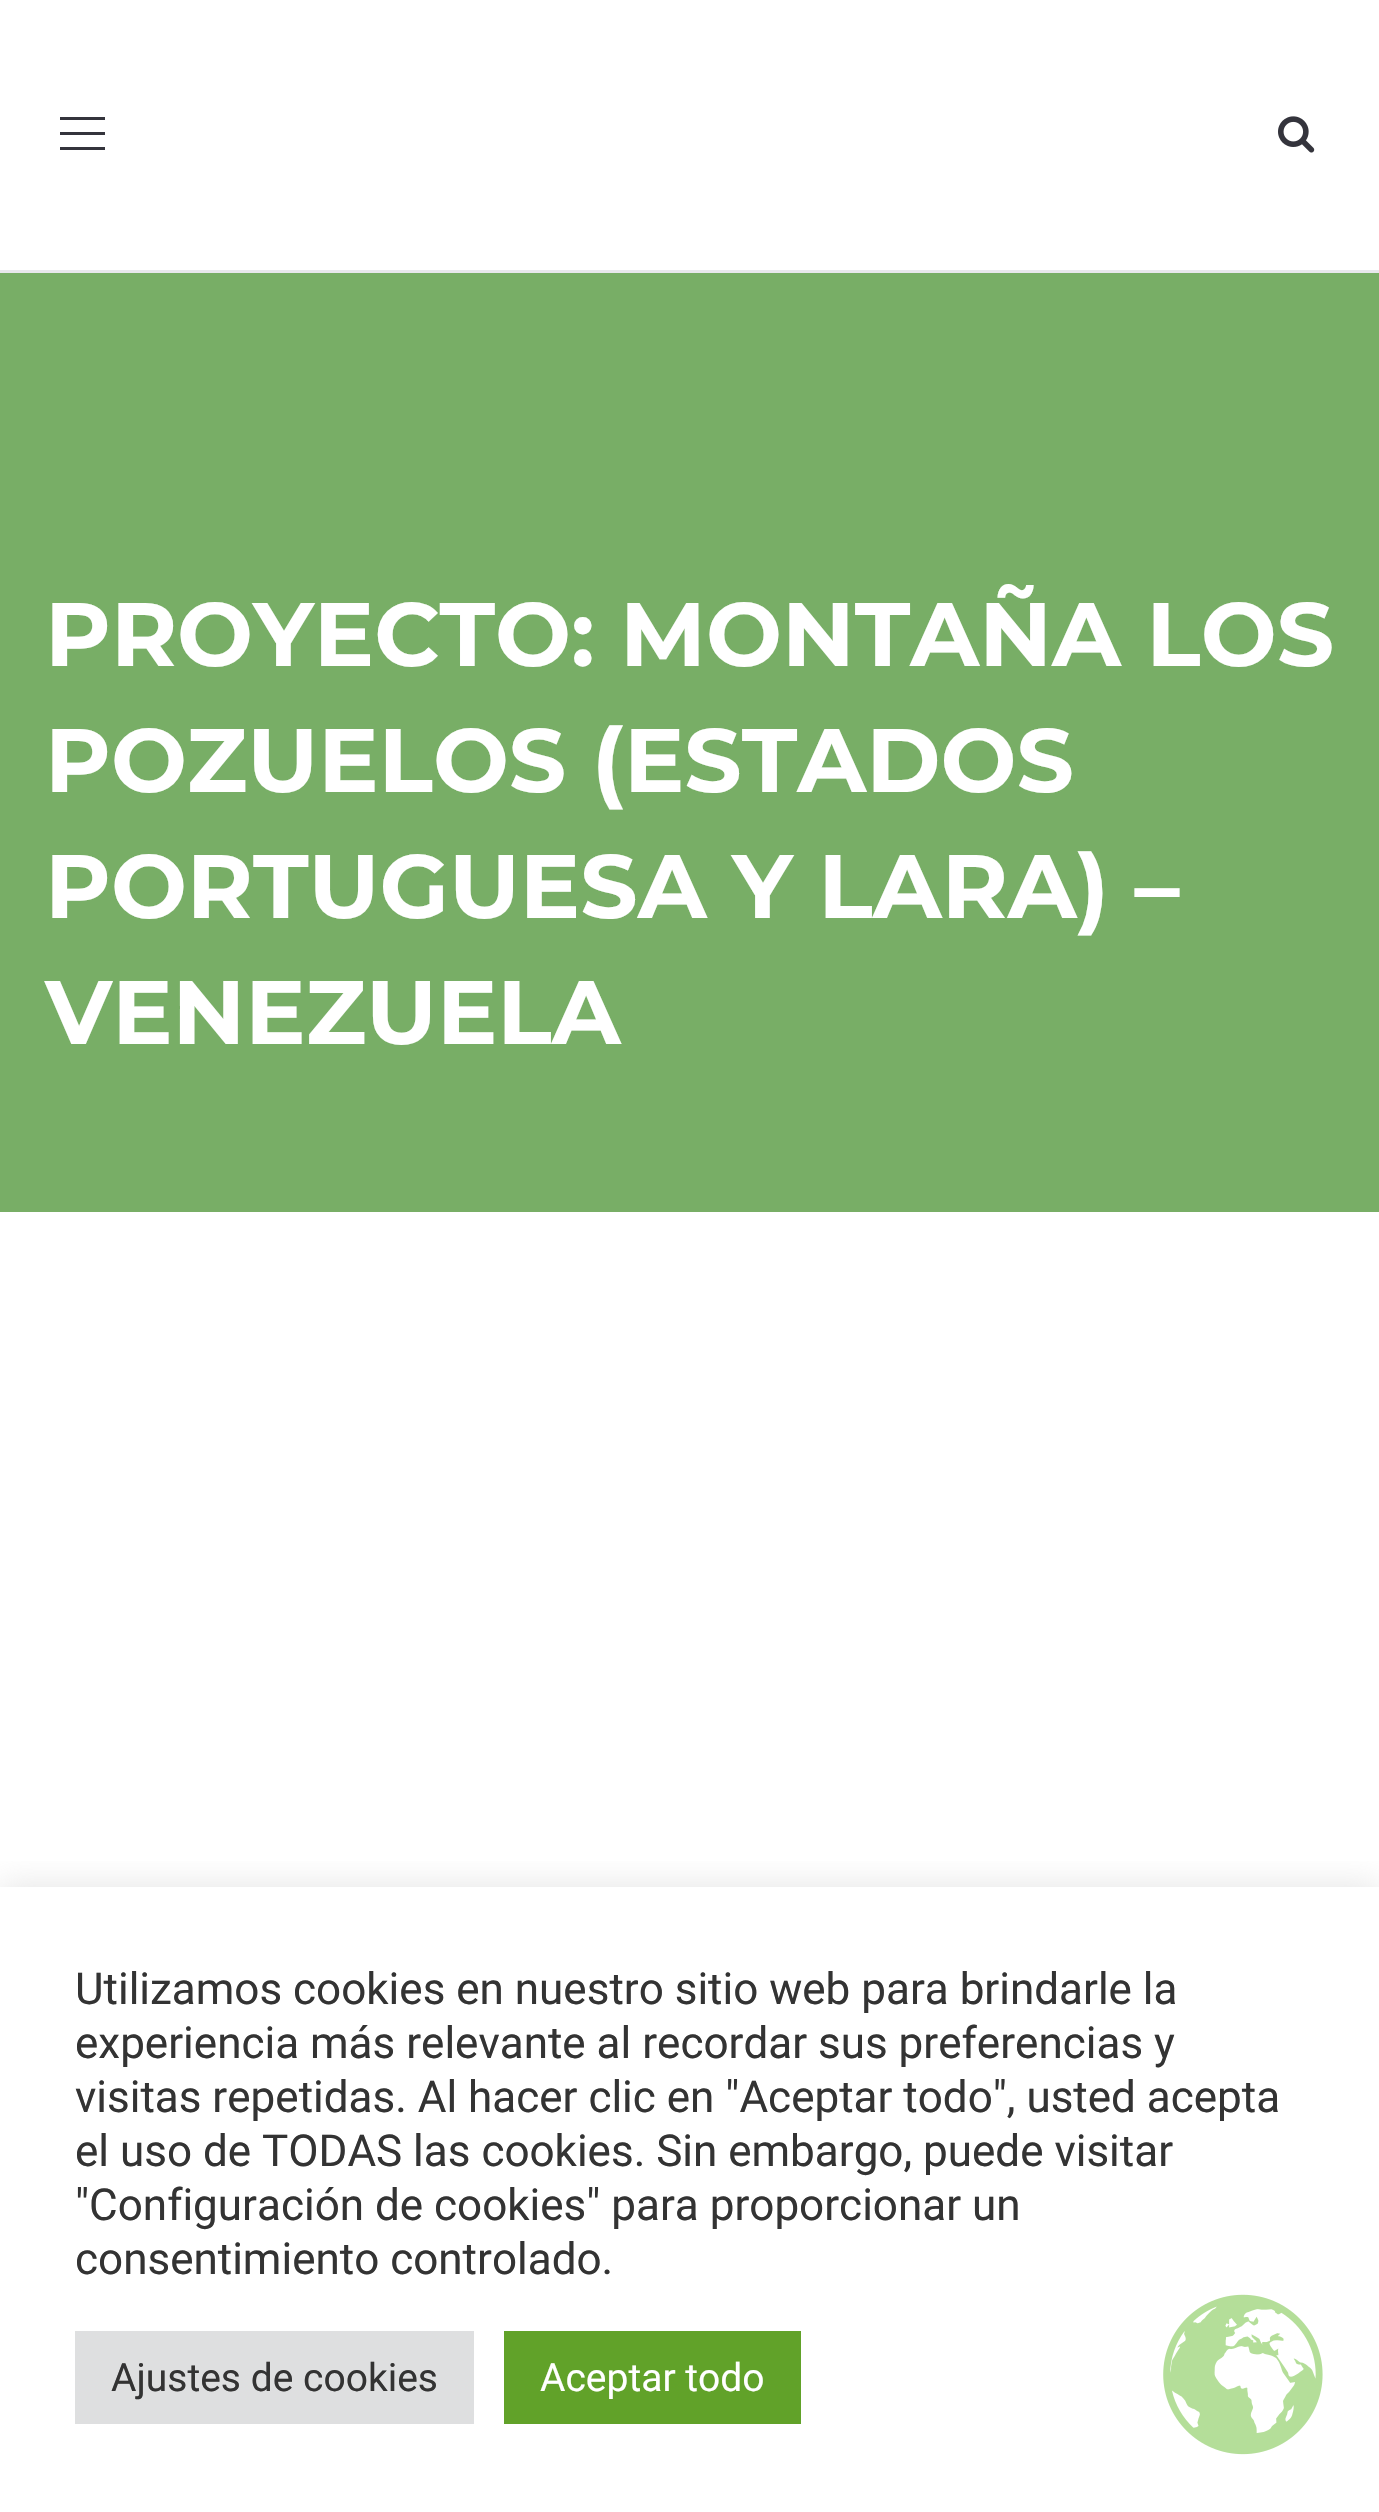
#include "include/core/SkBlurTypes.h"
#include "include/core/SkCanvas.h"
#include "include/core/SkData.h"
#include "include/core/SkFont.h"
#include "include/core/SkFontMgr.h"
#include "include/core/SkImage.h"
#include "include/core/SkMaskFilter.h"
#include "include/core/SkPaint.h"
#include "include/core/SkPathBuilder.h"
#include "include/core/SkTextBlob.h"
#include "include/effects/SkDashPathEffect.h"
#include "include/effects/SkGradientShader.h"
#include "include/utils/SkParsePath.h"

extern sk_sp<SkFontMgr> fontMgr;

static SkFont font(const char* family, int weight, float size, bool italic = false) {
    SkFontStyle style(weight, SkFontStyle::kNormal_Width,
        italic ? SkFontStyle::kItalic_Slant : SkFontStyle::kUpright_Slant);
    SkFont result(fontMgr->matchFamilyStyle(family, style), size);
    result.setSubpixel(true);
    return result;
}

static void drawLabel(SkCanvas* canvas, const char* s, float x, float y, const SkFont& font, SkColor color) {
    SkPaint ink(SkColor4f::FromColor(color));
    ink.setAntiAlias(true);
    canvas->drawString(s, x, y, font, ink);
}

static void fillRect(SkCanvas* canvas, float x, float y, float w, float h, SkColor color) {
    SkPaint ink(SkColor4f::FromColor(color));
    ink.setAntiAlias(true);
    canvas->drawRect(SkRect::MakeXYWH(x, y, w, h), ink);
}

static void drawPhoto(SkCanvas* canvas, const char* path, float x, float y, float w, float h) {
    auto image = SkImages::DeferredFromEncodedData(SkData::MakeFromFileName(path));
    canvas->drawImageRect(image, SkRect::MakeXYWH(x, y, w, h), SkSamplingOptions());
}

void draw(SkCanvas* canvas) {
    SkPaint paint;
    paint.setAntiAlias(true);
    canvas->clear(0xFFFFFFFF);
    fillRect(canvas, 0, 270, 1379, 3, 0xFFE8E8EC);
    fillRect(canvas, 60, 147, 45, 3, 0xFF34343C);
    fillRect(canvas, 60, 117, 45, 3, 0xFF34343C);
    fillRect(canvas, 60, 132, 45, 3, 0xFF34343C);
    drawPhoto(canvas, "assets/img1.png", 1278, 116, 37, 37);
    fillRect(canvas, 0, 273, 1379, 939, 0xFF78AE66);
    SkFont font1 = font("Montserrat", 700, 90);
    drawLabel(canvas, "PROYECTO: MONTAÑA LOS", 45, 666, font1, 0xFFFFFFFF);
    drawLabel(canvas, "POZUELOS (ESTADOS", 45, 792, font1, 0xFFFFFFFF);
    drawLabel(canvas, "PORTUGUESA Y LARA) –", 45, 918, font1, 0xFFFFFFFF);
    drawLabel(canvas, "VENEZUELA", 45, 1044, font1, 0xFFFFFFFF);
    canvas->save();
    canvas->clipRect(SkRect::MakeXYWH(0, 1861, 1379, 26));
    paint.setColor(0x4DACABAB);
    paint.setMaskFilter(SkMaskFilter::MakeBlur(kNormal_SkBlurStyle, 15));
    canvas->drawRect(SkRect::MakeXYWH(0, 1884, 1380, 627), paint);
    paint.setMaskFilter(nullptr);
    canvas->restore();
    SkFont font2 = font("Roboto", 400, 44);
    drawLabel(canvas, "Utilizamos cookies en nuestro sitio web para brindarle la", 75, 2004, font2, 0xFF333333);
    drawLabel(canvas, "experiencia más relevante al recordar sus preferencias y", 75, 2058, font2, 0xFF333333);
    drawLabel(canvas, "visitas repetidas. Al hacer clic en \"Aceptar todo\", usted acepta", 75, 2112, font2, 0xFF333333);
    drawLabel(canvas, "el uso de TODAS las cookies. Sin embargo, puede visitar", 75, 2166, font2, 0xFF333333);
    drawLabel(canvas, "\"Configuración de cookies\" para proporcionar un", 75, 2220, font2, 0xFF333333);
    drawLabel(canvas, "consentimiento controlado.", 75, 2274, font2, 0xFF333333);
    fillRect(canvas, 75, 2331, 399, 93, 0xFFDEDFE0);
    SkFont font3 = font("Roboto", 400, 39);
    drawLabel(canvas, "Ajustes de cookies", 111, 2391, font3, 0xFF333333);
    fillRect(canvas, 504, 2331, 297, 93, 0xFF61A229);
    drawLabel(canvas, "Aceptar todo", 540, 2391, font3, 0xFFFFFFFF);
    drawPhoto(canvas, "assets/img2.png", 1163, 2294, 160, 161);
}
